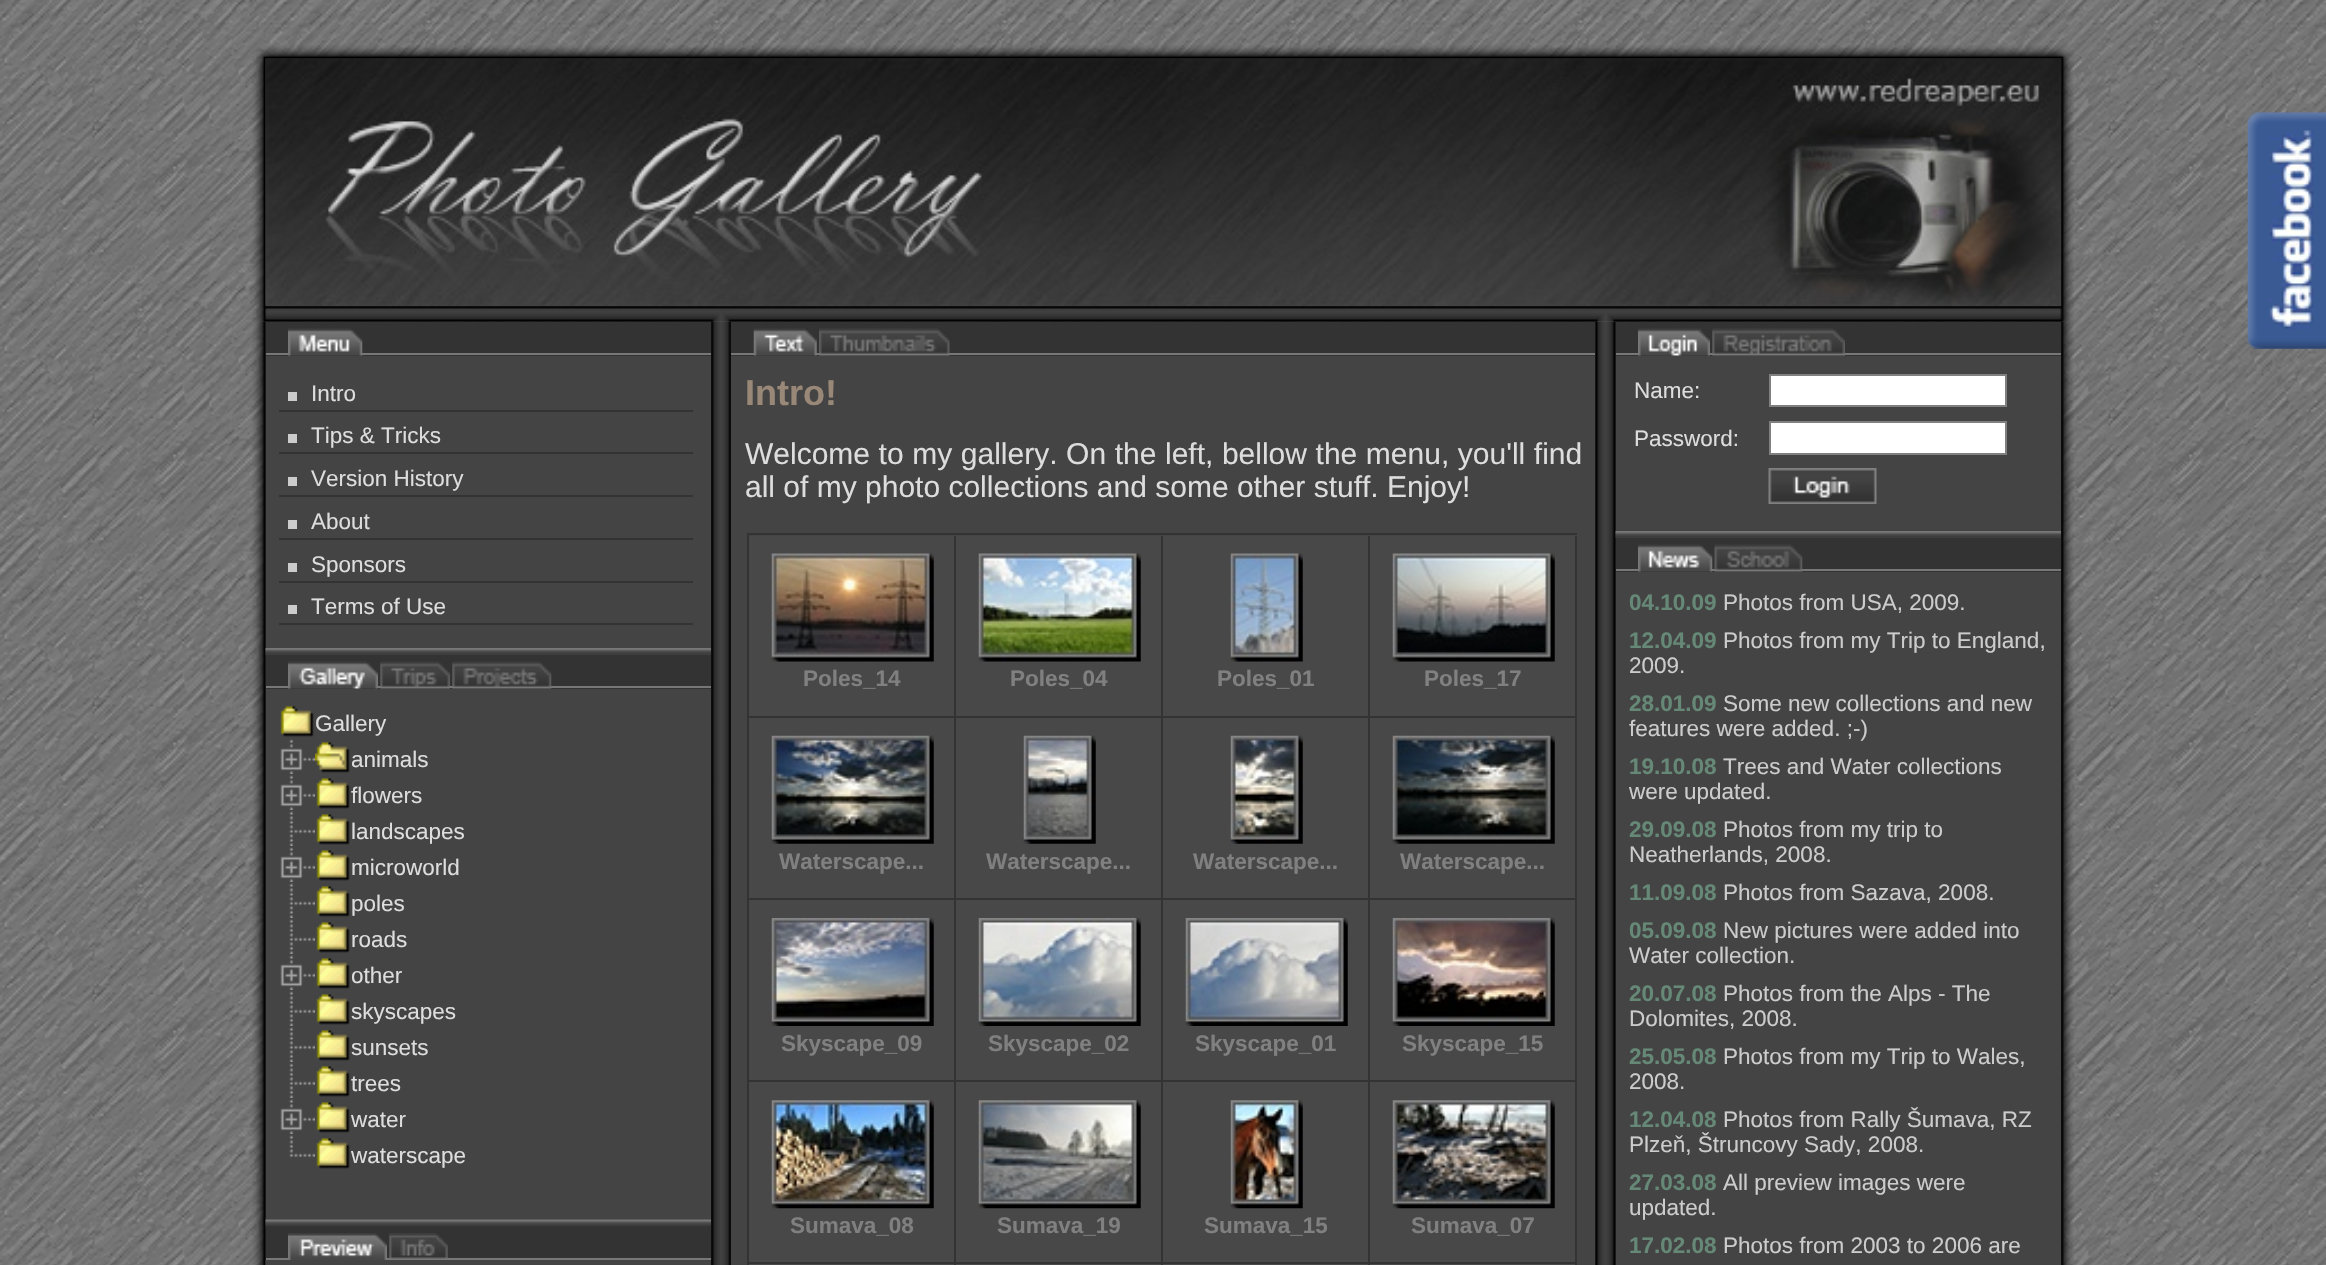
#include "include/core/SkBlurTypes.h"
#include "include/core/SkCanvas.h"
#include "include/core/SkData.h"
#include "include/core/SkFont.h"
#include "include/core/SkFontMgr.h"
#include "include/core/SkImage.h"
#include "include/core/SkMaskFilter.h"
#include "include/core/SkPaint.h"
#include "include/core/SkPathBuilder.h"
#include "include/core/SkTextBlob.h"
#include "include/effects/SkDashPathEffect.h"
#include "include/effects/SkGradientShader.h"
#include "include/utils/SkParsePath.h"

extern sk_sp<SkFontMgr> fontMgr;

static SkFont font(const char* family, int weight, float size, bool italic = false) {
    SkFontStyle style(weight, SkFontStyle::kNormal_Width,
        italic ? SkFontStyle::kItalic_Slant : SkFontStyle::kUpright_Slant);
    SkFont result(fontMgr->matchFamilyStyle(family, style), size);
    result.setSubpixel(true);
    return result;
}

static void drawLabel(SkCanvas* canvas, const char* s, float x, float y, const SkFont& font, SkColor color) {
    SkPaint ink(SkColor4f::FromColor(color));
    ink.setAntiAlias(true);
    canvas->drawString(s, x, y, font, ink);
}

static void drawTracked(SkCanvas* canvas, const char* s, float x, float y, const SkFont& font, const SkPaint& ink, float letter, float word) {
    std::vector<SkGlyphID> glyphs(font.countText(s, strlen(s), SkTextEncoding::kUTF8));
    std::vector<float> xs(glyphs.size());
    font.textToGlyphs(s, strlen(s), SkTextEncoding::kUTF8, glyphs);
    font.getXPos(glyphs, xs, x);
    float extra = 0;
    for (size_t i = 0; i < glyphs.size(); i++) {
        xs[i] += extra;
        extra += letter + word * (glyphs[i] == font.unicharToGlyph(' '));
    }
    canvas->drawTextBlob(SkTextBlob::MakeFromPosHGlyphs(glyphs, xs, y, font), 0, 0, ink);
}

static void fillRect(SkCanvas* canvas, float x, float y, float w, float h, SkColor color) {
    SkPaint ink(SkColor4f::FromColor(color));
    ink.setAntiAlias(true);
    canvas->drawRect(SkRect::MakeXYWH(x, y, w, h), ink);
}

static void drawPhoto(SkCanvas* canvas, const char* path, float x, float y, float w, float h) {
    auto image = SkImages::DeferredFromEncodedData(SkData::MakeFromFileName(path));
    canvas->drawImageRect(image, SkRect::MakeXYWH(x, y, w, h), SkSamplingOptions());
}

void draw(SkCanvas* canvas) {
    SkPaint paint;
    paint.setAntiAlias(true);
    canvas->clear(0xFFFFFFFF);
    drawPhoto(canvas, "assets/img1.png", 0, 0, 2326, 1265);
    drawPhoto(canvas, "assets/img5.png", 252, 321, 1822, 944);
    drawPhoto(canvas, "assets/img2.png", 252, 45, 1822, 277);
    drawPhoto(canvas, "assets/img3.png", 265, 58, 1796, 248);
    drawPhoto(canvas, "assets/img4.png", 2247, 112, 79, 237);
    fillRect(canvas, 266, 356, 445, 909, 0xFF444444);
    fillRect(canvas, 266, 322, 445, 34, 0xFF333333);
    fillRect(canvas, 266, 353, 445, 2, 0xFF777777);
    drawPhoto(canvas, "assets/img6.png", 288, 328, 75, 28);
    fillRect(canvas, 288, 392, 9, 9, 0xFFCCCCCC);
    fillRect(canvas, 279, 410, 414, 2, 0xFF333333);
    SkFont font1 = font("Liberation Sans", 400, 22.5f);
    drawLabel(canvas, "Intro", 311, 401, font1, 0xFFDDDDDD);
    fillRect(canvas, 288, 434, 9, 9, 0xFFCCCCCC);
    fillRect(canvas, 279, 452, 414, 2, 0xFF333333);
    drawLabel(canvas, "Tips & Tricks", 311, 443, font1, 0xFFDDDDDD);
    fillRect(canvas, 288, 477, 9, 9, 0xFFCCCCCC);
    fillRect(canvas, 279, 495, 414, 2, 0xFF333333);
    drawLabel(canvas, "Version History", 311, 486, font1, 0xFFDDDDDD);
    fillRect(canvas, 288, 520, 9, 9, 0xFFCCCCCC);
    fillRect(canvas, 279, 538, 414, 2, 0xFF333333);
    drawLabel(canvas, "About", 311, 529, font1, 0xFFDDDDDD);
    fillRect(canvas, 288, 563, 9, 9, 0xFFCCCCCC);
    fillRect(canvas, 279, 581, 414, 2, 0xFF333333);
    drawLabel(canvas, "Sponsors", 311, 572, font1, 0xFFDDDDDD);
    fillRect(canvas, 288, 605, 9, 9, 0xFFCCCCCC);
    fillRect(canvas, 279, 623, 414, 2, 0xFF333333);
    drawLabel(canvas, "Terms of Use", 311, 614, font1, 0xFFDDDDDD);
    drawPhoto(canvas, "assets/img7.png", 265, 648, 446, 7);
    fillRect(canvas, 266, 655, 445, 34, 0xFF333333);
    fillRect(canvas, 266, 686, 445, 2, 0xFF777777);
    drawPhoto(canvas, "assets/img8.png", 288, 661, 90, 28);
    drawPhoto(canvas, "assets/img9.png", 380, 661, 70, 28);
    drawPhoto(canvas, "assets/img10.png", 452, 661, 100, 28);
    drawPhoto(canvas, "assets/img11.png", 280, 706, 34, 31);
    drawLabel(canvas, "Gallery", 315, 731, font1, 0xFFDDDDDD);
    drawPhoto(canvas, "assets/img12.png", 280, 739, 35, 35);
    drawPhoto(canvas, "assets/img13.png", 315, 742, 35, 31);
    drawLabel(canvas, "animals", 351, 767, font1, 0xFFDDDDDD);
    drawPhoto(canvas, "assets/img14.png", 280, 775, 35, 35);
    drawPhoto(canvas, "assets/img15.png", 316, 778, 34, 31);
    drawLabel(canvas, "flowers", 351, 803, font1, 0xFFDDDDDD);
    drawPhoto(canvas, "assets/img16.png", 289, 811, 26, 35);
    drawPhoto(canvas, "assets/img17.png", 316, 814, 34, 31);
    drawLabel(canvas, "landscapes", 351, 839, font1, 0xFFDDDDDD);
    drawPhoto(canvas, "assets/img12.png", 280, 847, 35, 35);
    drawPhoto(canvas, "assets/img18.png", 316, 850, 34, 31);
    drawLabel(canvas, "microworld", 351, 875, font1, 0xFFDDDDDD);
    drawPhoto(canvas, "assets/img19.png", 289, 883, 26, 35);
    drawPhoto(canvas, "assets/img18.png", 316, 886, 34, 31);
    drawLabel(canvas, "poles", 351, 911, font1, 0xFFDDDDDD);
    drawPhoto(canvas, "assets/img19.png", 289, 919, 26, 35);
    drawPhoto(canvas, "assets/img18.png", 316, 922, 34, 31);
    drawLabel(canvas, "roads", 351, 947, font1, 0xFFDDDDDD);
    drawPhoto(canvas, "assets/img12.png", 280, 955, 35, 35);
    drawPhoto(canvas, "assets/img18.png", 316, 958, 34, 31);
    drawLabel(canvas, "other", 351, 983, font1, 0xFFDDDDDD);
    drawPhoto(canvas, "assets/img19.png", 289, 991, 26, 35);
    drawPhoto(canvas, "assets/img18.png", 316, 994, 34, 31);
    drawLabel(canvas, "skyscapes", 351, 1019, font1, 0xFFDDDDDD);
    drawPhoto(canvas, "assets/img19.png", 289, 1027, 26, 35);
    drawPhoto(canvas, "assets/img18.png", 316, 1030, 34, 31);
    drawLabel(canvas, "sunsets", 351, 1055, font1, 0xFFDDDDDD);
    drawPhoto(canvas, "assets/img19.png", 289, 1063, 26, 35);
    drawPhoto(canvas, "assets/img18.png", 316, 1066, 34, 31);
    drawLabel(canvas, "trees", 351, 1091, font1, 0xFFDDDDDD);
    drawPhoto(canvas, "assets/img12.png", 280, 1099, 35, 35);
    drawPhoto(canvas, "assets/img18.png", 316, 1102, 34, 31);
    drawLabel(canvas, "water", 351, 1127, font1, 0xFFDDDDDD);
    drawPhoto(canvas, "assets/img20.png", 289, 1135, 26, 23);
    drawPhoto(canvas, "assets/img17.png", 316, 1138, 34, 31);
    drawLabel(canvas, "waterscape", 351, 1163, font1, 0xFFDDDDDD);
    drawPhoto(canvas, "assets/img21.png", 265, 1219, 446, 8);
    fillRect(canvas, 266, 1226, 445, 32, 0xFF333333);
    fillRect(canvas, 266, 1258, 445, 2, 0xFF777777);
    drawPhoto(canvas, "assets/img22.png", 288, 1233, 99, 27);
    drawPhoto(canvas, "assets/img23.png", 389, 1233, 59, 26);
    fillRect(canvas, 265, 1260, 1, 5, 0xFF2F2F2F);
    fillRect(canvas, 731, 356, 864, 909, 0xFF444444);
    fillRect(canvas, 731, 322, 863, 34, 0xFF333333);
    fillRect(canvas, 731, 353, 864, 2, 0xFF777777);
    drawPhoto(canvas, "assets/img24.png", 753, 328, 64, 28);
    drawPhoto(canvas, "assets/img25.png", 819, 328, 131, 28);
    SkFont font2 = font("Liberation Sans", 700, 36);
    drawLabel(canvas, "Intro!", 745, 405, font2, 0xFF998877);
    SkFont font3 = font("Liberation Sans", 400, 30);
    paint.setColor(0xFFDDDDDD);
    drawTracked(canvas, "Welcome to my gallery. On the left, bellow the menu, you'll find", 745, 464, font3, paint, 0, 0.25f);
    drawLabel(canvas, "all of my photo collections and some other stuff. Enjoy!", 745, 497, font3, 0xFFDDDDDD);
    fillRect(canvas, 747, 533, 830, 2, 0xFF333333);
    fillRect(canvas, 747, 533, 2, 732, 0xFF333333);
    fillRect(canvas, 749, 536, 205, 180, 0xFF484848);
    fillRect(canvas, 954, 536, 2, 729, 0xFF333333);
    fillRect(canvas, 749, 716, 207, 2, 0xFF333333);
    drawPhoto(canvas, "assets/img26.png", 771, 553, 163, 109);
    SkFont font4 = font("Liberation Sans", 700, 22.5f);
    drawLabel(canvas, "Poles_14", 803, 686, font4, 0xFF808080);
    fillRect(canvas, 956, 536, 205, 180, 0xFF484848);
    fillRect(canvas, 1161, 536, 2, 729, 0xFF333333);
    fillRect(canvas, 956, 716, 207, 2, 0xFF333333);
    drawPhoto(canvas, "assets/img27.png", 978, 553, 163, 109);
    drawLabel(canvas, "Poles_04", 1010, 686, font4, 0xFF808080);
    fillRect(canvas, 1163, 536, 205, 180, 0xFF484848);
    fillRect(canvas, 1368, 536, 2, 729, 0xFF333333);
    fillRect(canvas, 1163, 716, 207, 2, 0xFF333333);
    drawPhoto(canvas, "assets/img28.png", 1230, 553, 73, 109);
    drawLabel(canvas, "Poles_01", 1217, 686, font4, 0xFF808080);
    fillRect(canvas, 1370, 536, 205, 180, 0xFF484848);
    fillRect(canvas, 1575, 536, 2, 729, 0xFF333333);
    fillRect(canvas, 1370, 716, 207, 2, 0xFF333333);
    drawPhoto(canvas, "assets/img29.png", 1392, 553, 163, 109);
    drawLabel(canvas, "Poles_17", 1424, 686, font4, 0xFF808080);
    fillRect(canvas, 749, 718, 205, 180, 0xFF484848);
    fillRect(canvas, 749, 898, 828, 2, 0xFF333333);
    drawPhoto(canvas, "assets/img30.png", 771, 735, 163, 109);
    drawLabel(canvas, "Waterscape...", 779, 869, font4, 0xFF808080);
    fillRect(canvas, 956, 718, 205, 180, 0xFF484848);
    drawPhoto(canvas, "assets/img31.png", 1023, 735, 73, 109);
    drawLabel(canvas, "Waterscape...", 986, 869, font4, 0xFF808080);
    fillRect(canvas, 1163, 718, 205, 180, 0xFF484848);
    drawPhoto(canvas, "assets/img32.png", 1230, 735, 73, 109);
    drawLabel(canvas, "Waterscape...", 1193, 869, font4, 0xFF808080);
    fillRect(canvas, 1370, 718, 205, 180, 0xFF484848);
    drawPhoto(canvas, "assets/img33.png", 1392, 735, 163, 109);
    drawLabel(canvas, "Waterscape...", 1400, 869, font4, 0xFF808080);
    fillRect(canvas, 749, 900, 205, 180, 0xFF484848);
    fillRect(canvas, 749, 1080, 828, 2, 0xFF333333);
    drawPhoto(canvas, "assets/img34.png", 771, 918, 163, 108);
    drawLabel(canvas, "Skyscape_09", 781, 1051, font4, 0xFF808080);
    fillRect(canvas, 956, 900, 205, 180, 0xFF484848);
    drawPhoto(canvas, "assets/img35.png", 978, 918, 163, 108);
    drawLabel(canvas, "Skyscape_02", 988, 1051, font4, 0xFF808080);
    fillRect(canvas, 1163, 900, 205, 180, 0xFF484848);
    drawPhoto(canvas, "assets/img36.png", 1185, 918, 163, 108);
    drawLabel(canvas, "Skyscape_01", 1195, 1051, font4, 0xFF808080);
    fillRect(canvas, 1370, 900, 205, 180, 0xFF484848);
    drawPhoto(canvas, "assets/img37.png", 1392, 918, 163, 108);
    drawLabel(canvas, "Skyscape_15", 1402, 1051, font4, 0xFF808080);
    fillRect(canvas, 749, 1082, 205, 183, 0xFF484848);
    fillRect(canvas, 749, 1262, 207, 2, 0xFF333333);
    drawPhoto(canvas, "assets/img38.png", 771, 1100, 163, 109);
    drawLabel(canvas, "Sumava_08", 790, 1233, font4, 0xFF808080);
    fillRect(canvas, 956, 1082, 205, 183, 0xFF484848);
    fillRect(canvas, 956, 1262, 207, 2, 0xFF333333);
    drawPhoto(canvas, "assets/img39.png", 978, 1100, 163, 109);
    drawLabel(canvas, "Sumava_19", 997, 1233, font4, 0xFF808080);
    fillRect(canvas, 1163, 1082, 205, 183, 0xFF484848);
    fillRect(canvas, 1163, 1262, 207, 2, 0xFF333333);
    drawPhoto(canvas, "assets/img40.png", 1230, 1100, 73, 109);
    drawLabel(canvas, "Sumava_15", 1204, 1233, font4, 0xFF808080);
    fillRect(canvas, 1370, 1082, 205, 183, 0xFF484848);
    fillRect(canvas, 1370, 1262, 207, 2, 0xFF333333);
    drawPhoto(canvas, "assets/img41.png", 1392, 1100, 163, 109);
    drawLabel(canvas, "Sumava_07", 1411, 1233, font4, 0xFF808080);
    fillRect(canvas, 1616, 356, 445, 909, 0xFF444444);
    fillRect(canvas, 1616, 322, 445, 34, 0xFF333333);
    fillRect(canvas, 1616, 353, 445, 2, 0xFF777777);
    drawPhoto(canvas, "assets/img42.png", 1638, 328, 72, 28);
    drawPhoto(canvas, "assets/img43.png", 1712, 328, 133, 28);
    drawLabel(canvas, "Name:", 1634, 398, font1, 0xFFDDDDDD);
    paint.setColor(0xFFFFFFFF);
    canvas->drawRect(SkRect::MakeXYWH(1770, 375, 236, 31), paint);
    paint.setStroke(true);
    paint.setStrokeWidth(2);
    paint.setColor(0xFF808080);
    canvas->drawRect(SkRect::MakeXYWH(1770, 375, 236, 31), paint);
    drawLabel(canvas, "Password:", 1634, 446, font1, 0xFFDDDDDD);
    paint.setStroke(false);
    paint.setColor(0xFFFFFFFF);
    canvas->drawRect(SkRect::MakeXYWH(1770, 422, 236, 32), paint);
    paint.setStroke(true);
    paint.setColor(0xFF808080);
    canvas->drawRect(SkRect::MakeXYWH(1770, 422, 236, 32), paint);
    drawPhoto(canvas, "assets/img44.png", 1768, 468, 109, 36);
    drawPhoto(canvas, "assets/img7.png", 1615, 531, 446, 7);
    fillRect(canvas, 1616, 538, 445, 34, 0xFF333333);
    fillRect(canvas, 1616, 569, 445, 2, 0xFF777777);
    drawPhoto(canvas, "assets/img45.png", 1638, 544, 75, 28);
    drawPhoto(canvas, "assets/img46.png", 1714, 544, 89, 28);
    drawLabel(canvas, "04.10.09", 1629, 610, font4, 0xFF668877);
    drawLabel(canvas, "Photos from USA, 2009.", 1723, 610, font1, 0xFFCCCCCC);
    drawLabel(canvas, "12.04.09", 1629, 648, font4, 0xFF668877);
    drawLabel(canvas, "Photos from my Trip to England,", 1723, 648, font1, 0xFFCCCCCC);
    drawLabel(canvas, "2009.", 1629, 673, font1, 0xFFCCCCCC);
    drawLabel(canvas, "28.01.09", 1629, 711, font4, 0xFF668877);
    drawLabel(canvas, "Some new collections and new", 1723, 711, font1, 0xFFCCCCCC);
    drawLabel(canvas, "features were added. ;-)", 1629, 736, font1, 0xFFCCCCCC);
    drawLabel(canvas, "19.10.08", 1629, 774, font4, 0xFF668877);
    drawLabel(canvas, "Trees and Water collections", 1723, 774, font1, 0xFFCCCCCC);
    drawLabel(canvas, "were updated.", 1629, 799, font1, 0xFFCCCCCC);
    drawLabel(canvas, "29.09.08", 1629, 837, font4, 0xFF668877);
    drawLabel(canvas, "Photos from my trip to", 1723, 837, font1, 0xFFCCCCCC);
    drawLabel(canvas, "Neatherlands, 2008.", 1629, 862, font1, 0xFFCCCCCC);
    drawLabel(canvas, "11.09.08", 1629, 900, font4, 0xFF668877);
    drawLabel(canvas, "Photos from Sazava, 2008.", 1723, 900, font1, 0xFFCCCCCC);
    drawLabel(canvas, "05.09.08", 1629, 938, font4, 0xFF668877);
    drawLabel(canvas, "New pictures were added into", 1723, 938, font1, 0xFFCCCCCC);
    drawLabel(canvas, "Water collection.", 1629, 963, font1, 0xFFCCCCCC);
    drawLabel(canvas, "20.07.08", 1629, 1001, font4, 0xFF668877);
    drawLabel(canvas, "Photos from the Alps - The", 1723, 1001, font1, 0xFFCCCCCC);
    drawLabel(canvas, "Dolomites, 2008.", 1629, 1026, font1, 0xFFCCCCCC);
    drawLabel(canvas, "25.05.08", 1629, 1064, font4, 0xFF668877);
    drawLabel(canvas, "Photos from my Trip to Wales,", 1723, 1064, font1, 0xFFCCCCCC);
    drawLabel(canvas, "2008.", 1629, 1089, font1, 0xFFCCCCCC);
    drawLabel(canvas, "12.04.08", 1629, 1127, font4, 0xFF668877);
    drawLabel(canvas, "Photos from Rally Šumava, RZ", 1723, 1127, font1, 0xFFCCCCCC);
    drawLabel(canvas, "Plzeň, Štruncovy Sady, 2008.", 1629, 1152, font1, 0xFFCCCCCC);
    drawLabel(canvas, "27.03.08", 1629, 1190, font4, 0xFF668877);
    drawLabel(canvas, "All preview images were", 1723, 1190, font1, 0xFFCCCCCC);
    drawLabel(canvas, "updated.", 1629, 1215, font1, 0xFFCCCCCC);
    drawLabel(canvas, "17.02.08", 1629, 1253, font4, 0xFF668877);
    drawLabel(canvas, "Photos from 2003 to 2006 are", 1723, 1253, font1, 0xFFCCCCCC);
}
